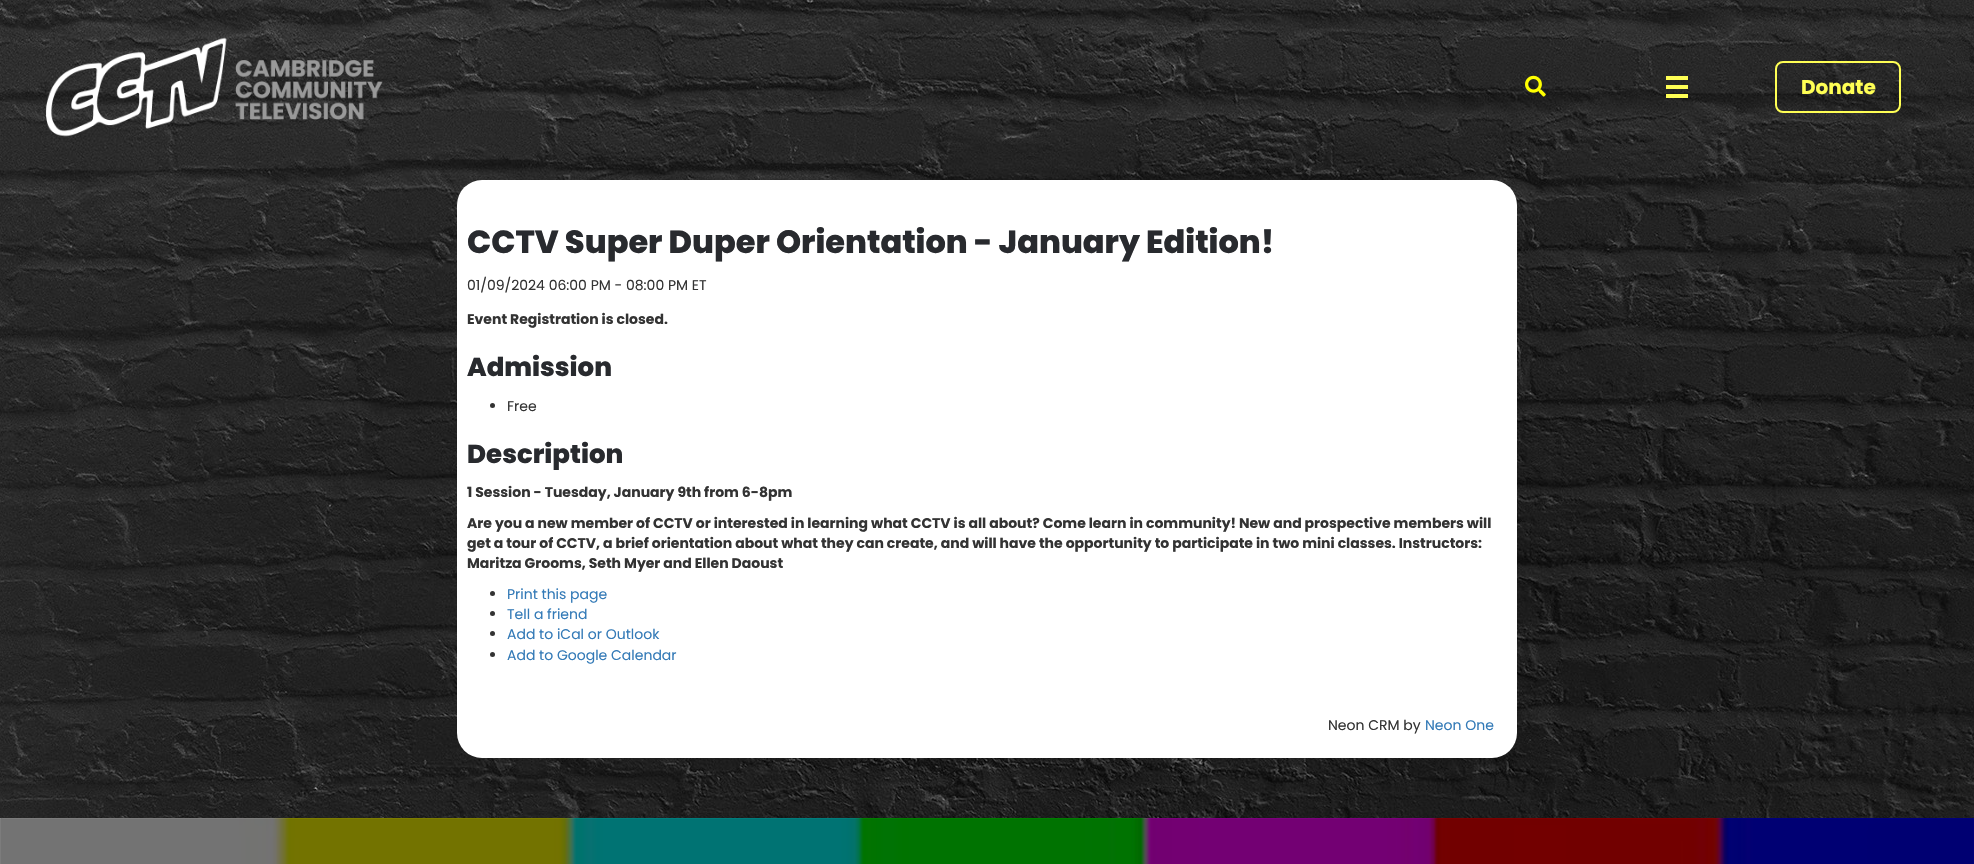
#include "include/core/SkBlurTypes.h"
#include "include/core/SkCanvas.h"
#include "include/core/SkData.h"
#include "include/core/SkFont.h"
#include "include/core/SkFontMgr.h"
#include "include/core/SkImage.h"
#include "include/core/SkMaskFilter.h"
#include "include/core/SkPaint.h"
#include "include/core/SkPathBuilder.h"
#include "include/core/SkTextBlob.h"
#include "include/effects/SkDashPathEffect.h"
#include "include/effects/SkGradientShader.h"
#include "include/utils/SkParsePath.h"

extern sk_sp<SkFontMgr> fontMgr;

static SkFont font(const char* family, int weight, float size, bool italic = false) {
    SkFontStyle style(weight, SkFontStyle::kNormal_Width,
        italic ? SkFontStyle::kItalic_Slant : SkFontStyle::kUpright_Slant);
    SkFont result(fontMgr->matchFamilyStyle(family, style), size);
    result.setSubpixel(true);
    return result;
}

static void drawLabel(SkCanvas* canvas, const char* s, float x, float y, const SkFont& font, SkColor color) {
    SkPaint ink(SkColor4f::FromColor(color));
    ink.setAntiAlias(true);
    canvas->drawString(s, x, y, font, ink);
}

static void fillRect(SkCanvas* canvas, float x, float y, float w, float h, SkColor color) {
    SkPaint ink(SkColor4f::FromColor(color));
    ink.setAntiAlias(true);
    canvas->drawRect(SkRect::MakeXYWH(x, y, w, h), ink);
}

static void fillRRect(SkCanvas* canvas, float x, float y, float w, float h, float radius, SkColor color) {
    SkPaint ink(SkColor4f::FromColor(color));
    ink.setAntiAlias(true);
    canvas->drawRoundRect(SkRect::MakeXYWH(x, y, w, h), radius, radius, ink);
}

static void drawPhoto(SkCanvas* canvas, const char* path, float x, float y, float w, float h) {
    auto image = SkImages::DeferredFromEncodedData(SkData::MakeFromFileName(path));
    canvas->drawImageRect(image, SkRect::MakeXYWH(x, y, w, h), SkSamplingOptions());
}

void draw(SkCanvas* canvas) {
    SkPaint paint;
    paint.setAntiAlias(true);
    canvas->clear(0xFFFFFFFF);
    drawPhoto(canvas, "assets/img1.png", 0, 0, 1974, 818);
    drawPhoto(canvas, "assets/img2.png", 46, 37, 337, 100);
    drawPhoto(canvas, "assets/img3.png", 1525, 75, 21, 22);
    fillRect(canvas, 1666, 76, 22, 4, 0xFFFFFF54);
    fillRect(canvas, 1666, 85, 22, 4, 0xFFFFFF54);
    fillRect(canvas, 1666, 94, 22, 4, 0xFFFFFF54);
    paint.setStroke(true);
    paint.setStrokeWidth(2);
    paint.setColor(0xFFFFFF54);
    canvas->drawRoundRect(SkRect::MakeXYWH(1776, 62, 124, 50), 7, 7, paint);
    SkFont font1 = font("Poppins", 700, 20);
    drawLabel(canvas, "Donate", 1801, 94, font1, 0xFFFFFF54);
    fillRRect(canvas, 457, 180, 1060, 578, 25, 0xFFFFFFFF);
    SkFont font2 = font("Poppins", 800, 32);
    drawLabel(canvas, "CCTV Super Duper Orientation - January Edition!", 467, 253, font2, 0xFF282A2E);
    SkFont font3 = font("Poppins", 400, 14);
    drawLabel(canvas, "01/09/2024 06:00 PM - 08:00 PM ET", 467, 290, font3, 0xFF333333);
    SkFont font4 = font("Poppins", 700, 14);
    drawLabel(canvas, "Event Registration is closed.", 467, 324, font4, 0xFF333333);
    SkFont font5 = font("Poppins", 800, 26);
    drawLabel(canvas, "Admission", 467, 376, font5, 0xFF282A2E);
    paint.setStroke(false);
    paint.setColor(0xFF333333);
    canvas->drawCircle(492.5f, 405.5f, 2.5f, paint);
    drawLabel(canvas, "Free", 507, 411, font3, 0xFF333333);
    drawLabel(canvas, "Description", 467, 463, font5, 0xFF282A2E);
    drawLabel(canvas, "1 Session - Tuesday, January 9th from 6-8pm", 467, 497, font4, 0xFF333333);
    drawLabel(canvas, "Are you a new member of CCTV or interested in learning what CCTV is all about? Come learn in community! New and prospective members will", 467, 528, font4, 0xFF333333);
    drawLabel(canvas, "get a tour of CCTV, a brief orientation about what they can create, and will have the opportunity to participate in two mini classes. Instructors:", 467, 548, font4, 0xFF333333);
    drawLabel(canvas, "Maritza Grooms, Seth Myer and Ellen Daoust", 467, 568, font4, 0xFF333333);
    canvas->drawCircle(492.5f, 593.5f, 2.5f, paint);
    drawLabel(canvas, "Print this page", 507, 599, font3, 0xFF337AB7);
    canvas->drawCircle(492.5f, 613.5f, 2.5f, paint);
    drawLabel(canvas, "Tell a friend", 507, 619, font3, 0xFF337AB7);
    canvas->drawCircle(492.5f, 633.5f, 2.5f, paint);
    drawLabel(canvas, "Add to iCal or Outlook", 507, 639, font3, 0xFF337AB7);
    canvas->drawCircle(492.5f, 654.5f, 2.5f, paint);
    drawLabel(canvas, "Add to Google Calendar", 507, 660, font3, 0xFF337AB7);
    drawLabel(canvas, "Neon CRM by", 1328, 730, font3, 0xFF333333);
    drawLabel(canvas, "Neon One", 1425, 730, font3, 0xFF337AB7);
    drawPhoto(canvas, "assets/img4.png", 0, 818, 1974, 46);
}
